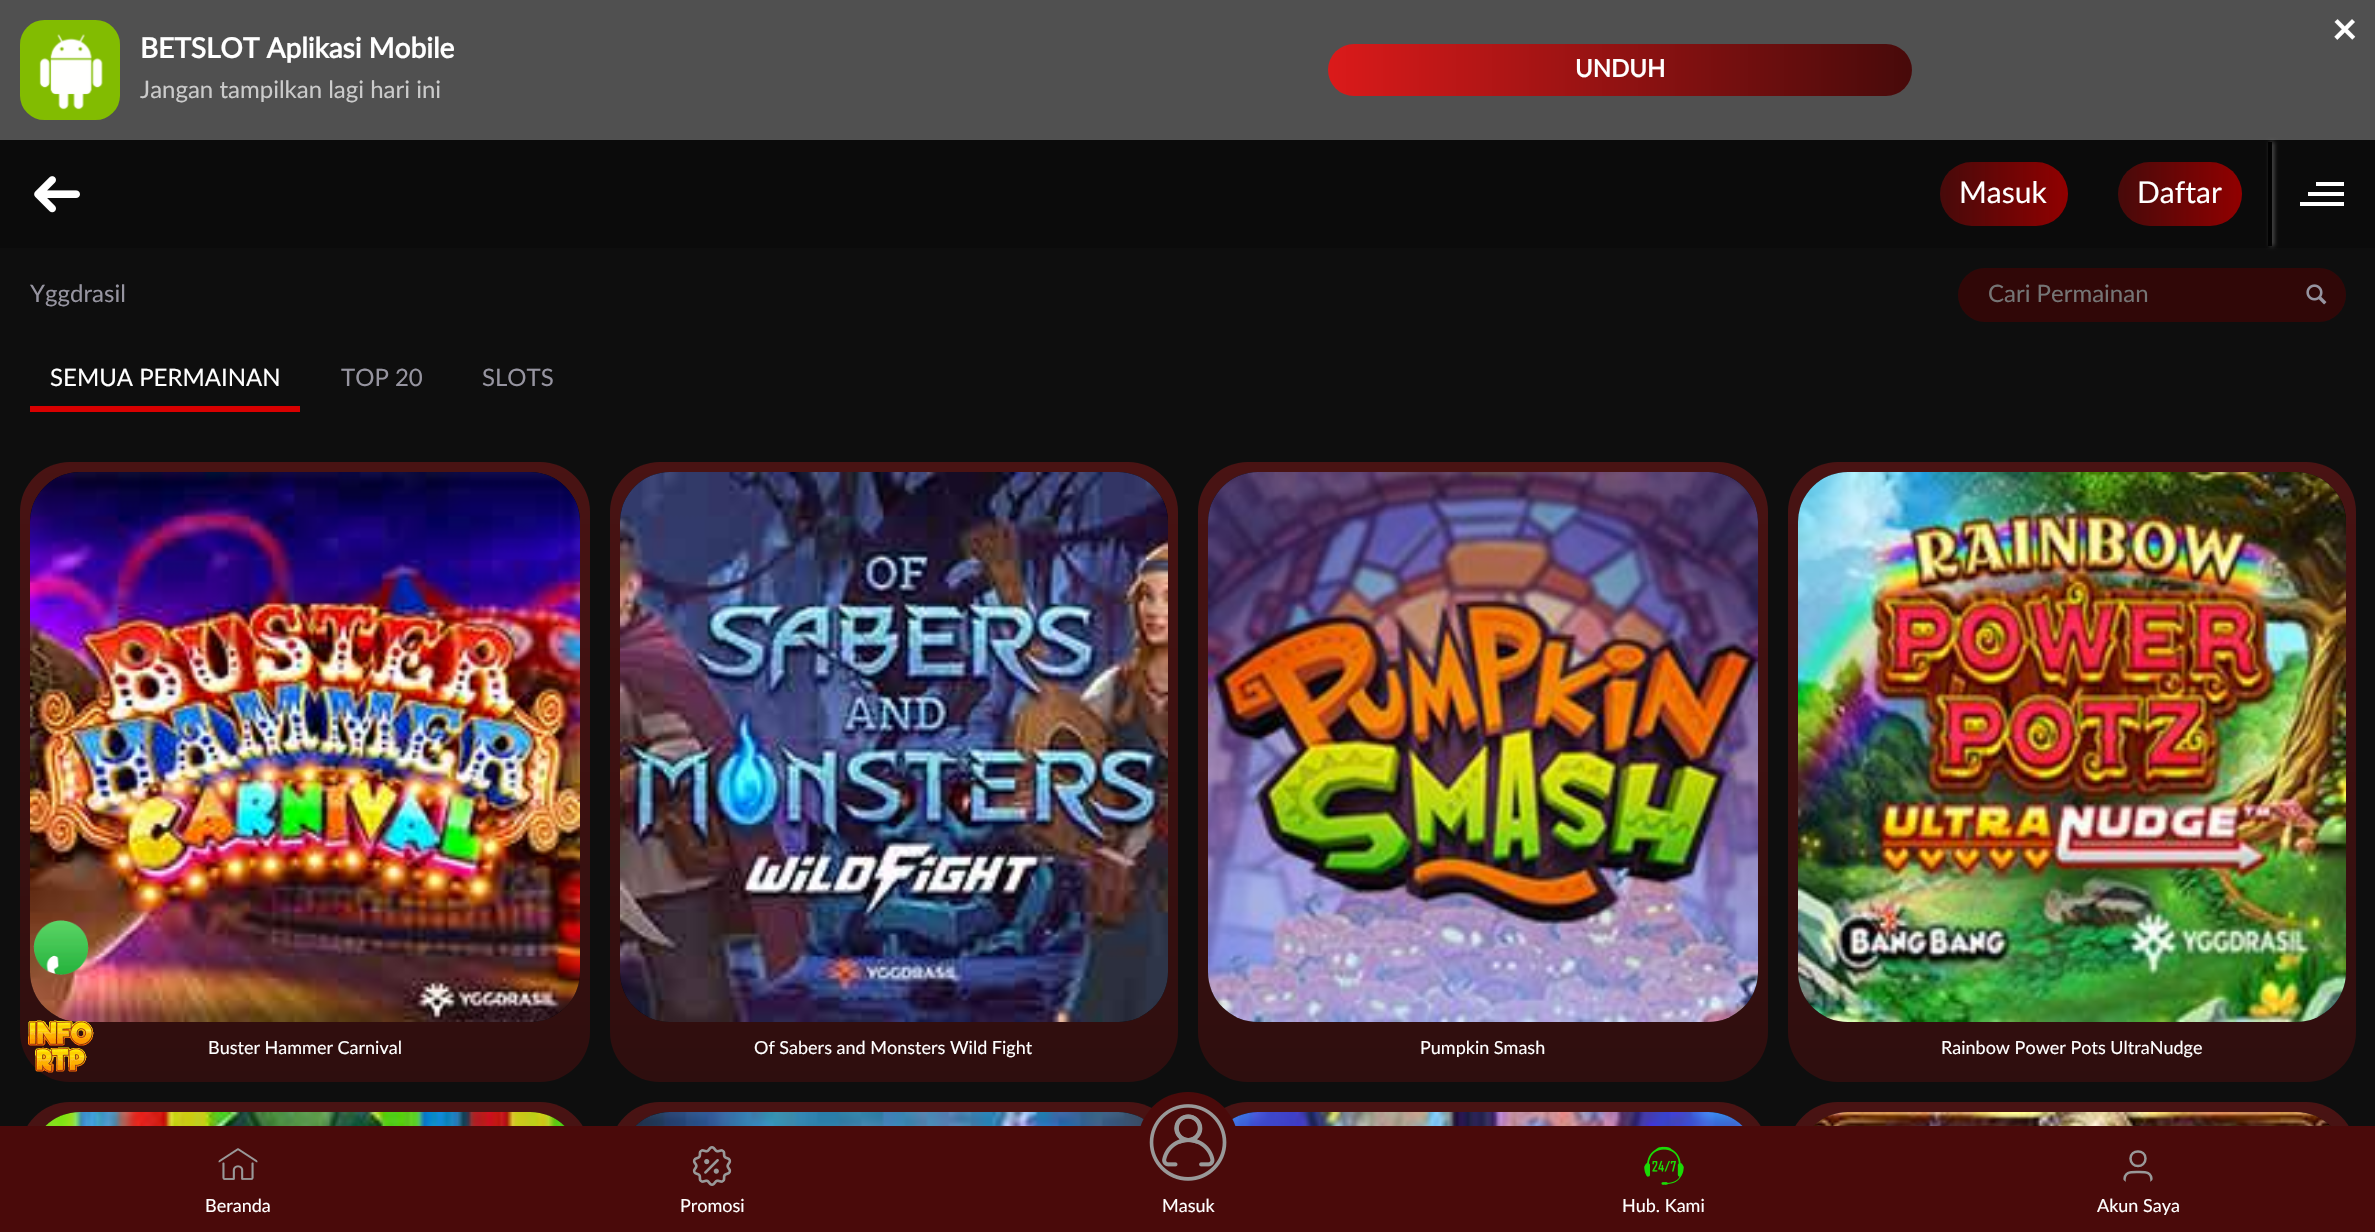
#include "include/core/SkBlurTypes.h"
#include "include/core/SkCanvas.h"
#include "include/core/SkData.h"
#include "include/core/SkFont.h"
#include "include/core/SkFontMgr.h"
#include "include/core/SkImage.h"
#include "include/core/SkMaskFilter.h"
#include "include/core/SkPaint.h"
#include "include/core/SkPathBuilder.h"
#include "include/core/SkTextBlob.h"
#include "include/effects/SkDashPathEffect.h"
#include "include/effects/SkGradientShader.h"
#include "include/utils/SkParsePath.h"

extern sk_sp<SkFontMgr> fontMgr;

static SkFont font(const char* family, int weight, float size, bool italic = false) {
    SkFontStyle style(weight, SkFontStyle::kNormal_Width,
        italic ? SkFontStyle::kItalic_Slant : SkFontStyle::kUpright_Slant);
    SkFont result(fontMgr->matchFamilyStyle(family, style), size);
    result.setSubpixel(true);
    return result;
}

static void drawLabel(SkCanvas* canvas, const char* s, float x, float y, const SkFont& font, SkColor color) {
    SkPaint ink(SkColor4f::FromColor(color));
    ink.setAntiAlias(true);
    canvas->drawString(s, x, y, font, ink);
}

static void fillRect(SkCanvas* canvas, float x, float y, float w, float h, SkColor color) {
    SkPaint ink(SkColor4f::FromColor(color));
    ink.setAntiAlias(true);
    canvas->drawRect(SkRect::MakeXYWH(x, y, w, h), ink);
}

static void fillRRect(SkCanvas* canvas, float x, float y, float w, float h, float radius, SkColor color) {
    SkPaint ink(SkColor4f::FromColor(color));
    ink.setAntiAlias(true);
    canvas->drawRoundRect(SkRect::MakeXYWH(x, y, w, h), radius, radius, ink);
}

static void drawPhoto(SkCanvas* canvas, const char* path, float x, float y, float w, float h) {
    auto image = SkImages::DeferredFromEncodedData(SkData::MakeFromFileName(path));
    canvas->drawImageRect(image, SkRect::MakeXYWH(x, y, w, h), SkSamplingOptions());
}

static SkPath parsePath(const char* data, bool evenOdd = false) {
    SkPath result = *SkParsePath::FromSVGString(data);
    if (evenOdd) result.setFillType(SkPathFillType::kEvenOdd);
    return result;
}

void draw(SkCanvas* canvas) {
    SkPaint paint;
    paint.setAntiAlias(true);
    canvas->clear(0xFF0E0E0E);
    fillRect(canvas, 0, 0, 2375, 140, 0xFF505050);
    drawPhoto(canvas, "assets/img1.png", 20, 20, 100, 100);
    SkFont font1 = font("Lato", 700, 42);
    drawLabel(canvas, "×", 2332, 44, font1, 0xFFFFFFFF);
    SkFont font2 = font("Lato", 700, 28);
    drawLabel(canvas, "BETSLOT Aplikasi Mobile", 140, 58, font2, 0xFFFFFFFF);
    SkFont font3 = font("Lato", 400, 24);
    drawLabel(canvas, "Jangan tampilkan lagi hari ini", 140, 98, font3, 0xFFCBCBCB);
    {
        const SkColor colors[] = {0xFFDB1A1A, 0xFF470A0A};
        const float stops[] = {0, 1};
        const SkPoint ends[] = {{1328, 70}, {1912, 70}};
        paint.setShader(SkGradientShader::MakeLinear(ends, colors, stops, 2, SkTileMode::kClamp));
        paint.setAlpha(255);
    }
    canvas->drawRoundRect(SkRect::MakeXYWH(1328, 44, 584, 52), 26, 26, paint);
    SkFont font4 = font("Lato", 700, 24);
    drawLabel(canvas, "UNDUH", 1575, 77, font4, 0xFFFFFFFF);
    fillRect(canvas, 0, 140, 2375, 108, 0xFF0B0B0B);
    drawPhoto(canvas, "assets/img2.png", 34, 176, 46, 37);
    {
        const SkColor colors[] = {0xFF470A0A, 0xFF910000};
        const float stops[] = {0, 1};
        const SkPoint ends[] = {{1940, 194}, {2068, 194}};
        paint.setShader(SkGradientShader::MakeLinear(ends, colors, stops, 2, SkTileMode::kClamp));
        paint.setAlpha(255);
    }
    canvas->drawRoundRect(SkRect::MakeXYWH(1940, 162, 128, 64), 32, 32, paint);
    SkFont font5 = font("Lato", 400, 30);
    drawLabel(canvas, "Masuk", 1959, 203, font5, 0xFFFFFFFF);
    {
        const SkColor colors[] = {0xFF470A0A, 0xFF910000};
        const float stops[] = {0, 1};
        const SkPoint ends[] = {{2118, 194}, {2242, 194}};
        paint.setShader(SkGradientShader::MakeLinear(ends, colors, stops, 2, SkTileMode::kClamp));
        paint.setAlpha(255);
    }
    canvas->drawRoundRect(SkRect::MakeXYWH(2118, 162, 124, 64), 32, 32, paint);
    drawLabel(canvas, "Daftar", 2137, 203, font5, 0xFFFFFFFF);
    paint.setShader(nullptr);
    paint.setColor(0x4DFFFFFF);
    paint.setMaskFilter(SkMaskFilter::MakeBlur(kNormal_SkBlurStyle, 2));
    canvas->drawRect(SkRect::MakeXYWH(2270, 142, 4, 104), paint);
    paint.setMaskFilter(nullptr);
    fillRect(canvas, 2268, 142, 4, 104, 0xFF020202);
    fillRect(canvas, 2308, 192, 36, 4, 0xFFFFFFFF);
    fillRect(canvas, 2316, 182, 28, 4, 0xFFFFFFFF);
    fillRect(canvas, 2300, 202, 44, 4, 0xFFFFFFFF);
    drawLabel(canvas, "Yggdrasil", 30, 302, font3, 0xFF9694A0);
    fillRRect(canvas, 1958, 268, 388, 54, 27, 0xFF300707);
    drawLabel(canvas, "Cari Permainan", 1988, 302, font3, 0xFF757575);
    drawPhoto(canvas, "assets/img3.png", 2306, 284, 21, 21);
    fillRect(canvas, 30, 406, 270, 6, 0xFFD80000);
    drawLabel(canvas, "SEMUA PERMAINAN", 50, 386, font3, 0xFFFFFFFF);
    drawLabel(canvas, "TOP 20", 341, 386, font3, 0xFF9694A0);
    drawLabel(canvas, "SLOTS", 482, 386, font3, 0xFF9694A0);
    {
        const SkColor colors[] = {0xFF491313, 0xFF2E0E0E};
        const float stops[] = {0, 1};
        const SkPoint ends[] = {{305, 462}, {305, 1082}};
        paint.setShader(SkGradientShader::MakeLinear(ends, colors, stops, 2, SkTileMode::kClamp));
        paint.setAlpha(255);
    }
    canvas->drawRoundRect(SkRect::MakeXYWH(20, 462, 570, 620), 50, 50, paint);
    fillRRect(canvas, 30, 472, 550, 550, 50, 0xFF000000);
    drawPhoto(canvas, "assets/img4.png", 30, 472, 550, 550);
    SkFont font6 = font("Lato", 400, 18);
    drawLabel(canvas, "Buster Hammer Carnival", 208, 1054, font6, 0xFFFFFFFF);
    {
        const SkColor colors[] = {0xFF491313, 0xFF2E0E0E};
        const float stops[] = {0, 1};
        const SkPoint ends[] = {{894, 462}, {894, 1082}};
        paint.setShader(SkGradientShader::MakeLinear(ends, colors, stops, 2, SkTileMode::kClamp));
        paint.setAlpha(255);
    }
    canvas->drawRoundRect(SkRect::MakeXYWH(610, 462, 568, 620), 50, 50, paint);
    fillRRect(canvas, 620, 472, 548, 550, 50, 0xFF000000);
    drawPhoto(canvas, "assets/img5.png", 620, 472, 548, 550);
    drawLabel(canvas, "Of Sabers and Monsters Wild Fight", 754, 1054, font6, 0xFFFFFFFF);
    {
        const SkColor colors[] = {0xFF491313, 0xFF2E0E0E};
        const float stops[] = {0, 1};
        const SkPoint ends[] = {{1483, 462}, {1483, 1082}};
        paint.setShader(SkGradientShader::MakeLinear(ends, colors, stops, 2, SkTileMode::kClamp));
        paint.setAlpha(255);
    }
    canvas->drawRoundRect(SkRect::MakeXYWH(1198, 462, 570, 620), 50, 50, paint);
    fillRRect(canvas, 1208, 472, 550, 550, 50, 0xFF000000);
    drawPhoto(canvas, "assets/img6.png", 1208, 472, 550, 550);
    drawLabel(canvas, "Pumpkin Smash", 1420, 1054, font6, 0xFFFFFFFF);
    {
        const SkColor colors[] = {0xFF491313, 0xFF2E0E0E};
        const float stops[] = {0, 1};
        const SkPoint ends[] = {{2072, 462}, {2072, 1082}};
        paint.setShader(SkGradientShader::MakeLinear(ends, colors, stops, 2, SkTileMode::kClamp));
        paint.setAlpha(255);
    }
    canvas->drawRoundRect(SkRect::MakeXYWH(1788, 462, 568, 620), 50, 50, paint);
    fillRRect(canvas, 1798, 472, 548, 550, 50, 0xFF000000);
    drawPhoto(canvas, "assets/img7.png", 1798, 472, 548, 550);
    drawLabel(canvas, "Rainbow Power Pots UltraNudge", 1941, 1054, font6, 0xFFFFFFFF);
    {
        const SkColor colors[] = {0xFF491313, 0xFF2E0E0E};
        const float stops[] = {0, 1};
        const SkPoint ends[] = {{305, 1102}, {305, 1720}};
        paint.setShader(SkGradientShader::MakeLinear(ends, colors, stops, 2, SkTileMode::kClamp));
        paint.setAlpha(255);
    }
    canvas->drawPath(parsePath("M70 1102H540C567.5 1102 590 1124.5 590 1152V1232H20V1152C20 1124.5 42.5 1102 70 1102Z"), paint);
    paint.setShader(nullptr);
    paint.setColor(0xFF000000);
    canvas->drawPath(parsePath("M80 1112H530C557.5 1112 580 1134.5 580 1162V1232H30V1162C30 1134.5 52.5 1112 80 1112Z"), paint);
    drawPhoto(canvas, "assets/img8.png", 45, 1112, 520, 14);
    {
        const SkColor colors[] = {0xFF491313, 0xFF2E0E0E};
        const float stops[] = {0, 1};
        const SkPoint ends[] = {{894, 1102}, {894, 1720}};
        paint.setShader(SkGradientShader::MakeLinear(ends, colors, stops, 2, SkTileMode::kClamp));
        paint.setAlpha(255);
    }
    canvas->drawPath(parsePath("M660 1102H1128C1155.5 1102 1178 1124.5 1178 1152V1232H610V1152C610 1124.5 632.5 1102 660 1102Z"), paint);
    paint.setShader(nullptr);
    paint.setColor(0xFF000000);
    canvas->drawPath(parsePath("M670 1112H1118C1145.5 1112 1168 1134.5 1168 1162V1232H620V1162C620 1134.5 642.5 1112 670 1112Z"), paint);
    drawPhoto(canvas, "assets/img9.png", 635, 1112, 509, 14);
    {
        const SkColor colors[] = {0xFF491313, 0xFF2E0E0E};
        const float stops[] = {0, 1};
        const SkPoint ends[] = {{1483, 1102}, {1483, 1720}};
        paint.setShader(SkGradientShader::MakeLinear(ends, colors, stops, 2, SkTileMode::kClamp));
        paint.setAlpha(255);
    }
    canvas->drawPath(parsePath("M1248 1102H1718C1745.5 1102 1768 1124.5 1768 1152V1232H1198V1152C1198 1124.5 1220.5 1102 1248 1102Z"), paint);
    paint.setShader(nullptr);
    paint.setColor(0xFF000000);
    canvas->drawPath(parsePath("M1258 1112H1708C1735.5 1112 1758 1134.5 1758 1162V1232H1208V1162C1208 1134.5 1230.5 1112 1258 1112Z"), paint);
    drawPhoto(canvas, "assets/img10.png", 1232, 1112, 511, 14);
    {
        const SkColor colors[] = {0xFF491313, 0xFF2E0E0E};
        const float stops[] = {0, 1};
        const SkPoint ends[] = {{2072, 1102}, {2072, 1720}};
        paint.setShader(SkGradientShader::MakeLinear(ends, colors, stops, 2, SkTileMode::kClamp));
        paint.setAlpha(255);
    }
    canvas->drawPath(parsePath("M1838 1102H2306C2333.5 1102 2356 1124.5 2356 1152V1232H1788V1152C1788 1124.5 1810.5 1102 1838 1102Z"), paint);
    paint.setShader(nullptr);
    paint.setColor(0xFF000000);
    canvas->drawPath(parsePath("M1848 1112H2296C2323.5 1112 2346 1134.5 2346 1162V1232H1798V1162C1798 1134.5 1820.5 1112 1848 1112Z"), paint);
    drawPhoto(canvas, "assets/img11.png", 1813, 1112, 518, 14);
    fillRect(canvas, 0, 1126, 2375, 106, 0xFF4A0A0A);
    drawPhoto(canvas, "assets/img12.png", 218, 1148, 40, 32);
    drawLabel(canvas, "Beranda", 205, 1212, font6, 0xFFFFFFFF);
    drawPhoto(canvas, "assets/img13.png", 692, 1146, 40, 40);
    drawLabel(canvas, "Promosi", 680, 1212, font6, 0xFFFFFFFF);
    paint.setColor(0xFF4A0A0A);
    canvas->drawCircle(1188, 1142, 50, paint);
    drawPhoto(canvas, "assets/img14.png", 1149, 1104, 78, 77);
    drawLabel(canvas, "Masuk", 1162, 1212, font6, 0xFFFFFFFF);
    drawPhoto(canvas, "assets/img15.png", 1644, 1146, 40, 39);
    drawLabel(canvas, "Hub. Kami", 1622, 1212, font6, 0xFFFFFFFF);
    canvas->save();
    canvas->clipPath(parsePath("M2138 1146C2149 1146 2158 1155 2158 1166C2158 1177 2149 1186 2138 1186C2127 1186 2118 1177 2118 1166C2118 1155 2127 1146 2138 1146Z"), true);
    paint.setStroke(true);
    paint.setStrokeWidth(2.5f);
    paint.setStrokeCap(SkPaint::kRound_Cap);
    paint.setStrokeJoin(SkPaint::kRound_Join);
    paint.setColor(0xFF999999);
    canvas->drawPath(parsePath("M2151.5 1181.5C2152 1171.5 2145.5 1172 2138 1172C2130.5 1172 2124 1171.5 2124.5 1181.5M2145.5 1158.5C2145.5 1168.5 2130.5 1168.5 2130.5 1158.5C2130.5 1149 2145.5 1149 2145.5 1158.5Z"), paint);
    canvas->restore();
    drawLabel(canvas, "Akun Saya", 2097, 1212, font6, 0xFFFFFFFF);
    drawPhoto(canvas, "assets/img16.png", 33, 920, 56, 55);
    drawPhoto(canvas, "assets/img17.png", 28, 1020, 66, 53);
}
